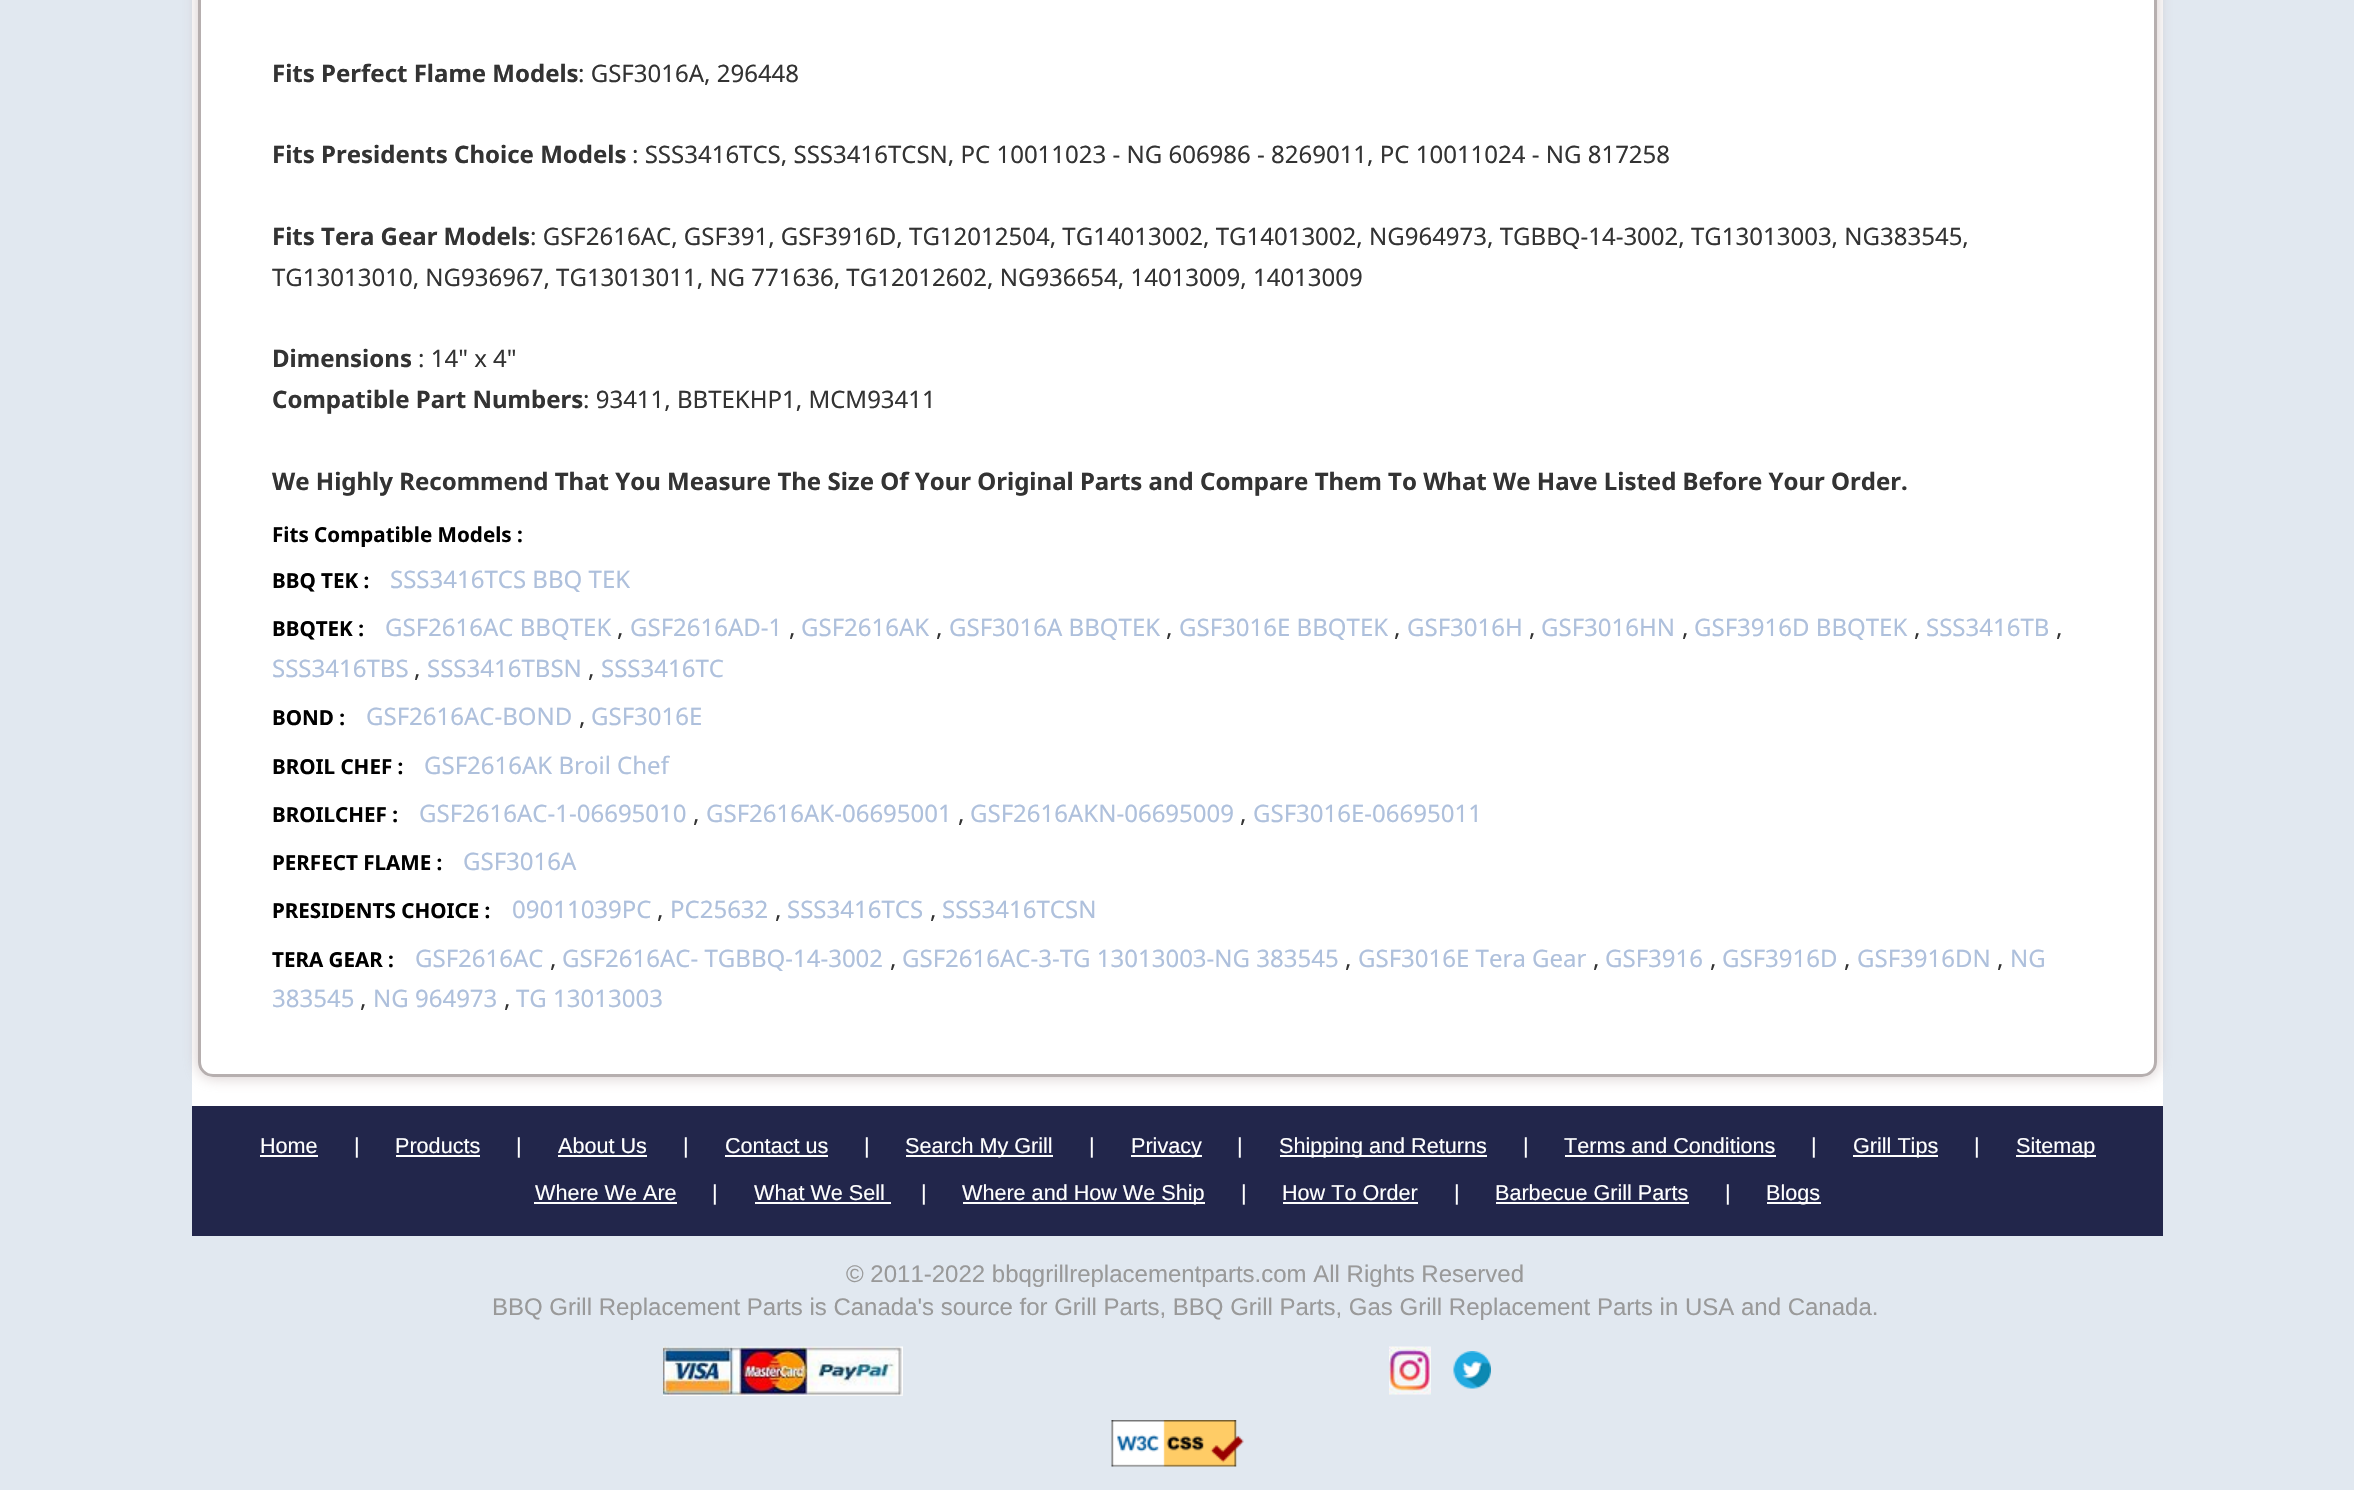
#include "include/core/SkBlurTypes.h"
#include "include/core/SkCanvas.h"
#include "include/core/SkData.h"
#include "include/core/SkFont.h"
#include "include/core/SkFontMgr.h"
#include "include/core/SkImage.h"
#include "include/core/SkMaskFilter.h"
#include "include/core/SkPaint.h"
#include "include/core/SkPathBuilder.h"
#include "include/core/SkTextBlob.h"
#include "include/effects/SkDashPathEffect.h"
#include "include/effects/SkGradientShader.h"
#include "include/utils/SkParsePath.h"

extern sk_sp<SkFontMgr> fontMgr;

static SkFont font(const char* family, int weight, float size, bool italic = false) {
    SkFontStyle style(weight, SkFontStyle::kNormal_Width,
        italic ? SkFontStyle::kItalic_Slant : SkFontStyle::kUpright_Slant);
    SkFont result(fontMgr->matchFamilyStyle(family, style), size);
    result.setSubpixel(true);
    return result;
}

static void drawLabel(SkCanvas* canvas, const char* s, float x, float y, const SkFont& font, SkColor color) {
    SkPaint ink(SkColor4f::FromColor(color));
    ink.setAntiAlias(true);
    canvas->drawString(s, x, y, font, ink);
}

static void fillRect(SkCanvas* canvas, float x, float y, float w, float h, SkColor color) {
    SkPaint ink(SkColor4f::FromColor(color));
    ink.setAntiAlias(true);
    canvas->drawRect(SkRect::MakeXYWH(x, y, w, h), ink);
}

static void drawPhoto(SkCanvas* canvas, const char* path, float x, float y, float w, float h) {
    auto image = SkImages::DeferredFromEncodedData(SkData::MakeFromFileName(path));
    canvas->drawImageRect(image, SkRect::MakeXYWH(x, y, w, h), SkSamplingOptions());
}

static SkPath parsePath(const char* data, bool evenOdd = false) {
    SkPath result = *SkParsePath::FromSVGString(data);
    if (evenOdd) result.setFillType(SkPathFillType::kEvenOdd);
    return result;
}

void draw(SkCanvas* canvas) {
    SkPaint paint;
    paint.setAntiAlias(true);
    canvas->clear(0xFFE1E8F0);
    fillRect(canvas, 192, 0, 1971, 1106, 0xFFFFFFFF);
    canvas->save();
    canvas->clipPath(parsePath("M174 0H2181V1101H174ZM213-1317H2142C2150.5-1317 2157-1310.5 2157-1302V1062C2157 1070.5 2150.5 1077 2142 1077H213C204.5 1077 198 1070.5 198 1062V-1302C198-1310.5 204.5-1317 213-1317Z", true), true);
    paint.setColor(0x80A58F8F);
    paint.setMaskFilter(SkMaskFilter::MakeBlur(kNormal_SkBlurStyle, 7.5f));
    canvas->drawRoundRect(SkRect::MakeXYWH(198, -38, 1959, 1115), 15, 15, paint);
    paint.setMaskFilter(nullptr);
    canvas->restore();
    paint.setStroke(true);
    paint.setStrokeWidth(3);
    paint.setColor(0xFFB6AFAF);
    canvas->drawRoundRect(SkRect::MakeXYWH(199.5f, -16.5f, 1956, 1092), 13.5f, 13.5f, paint);
    SkFont font1 = font("Noto Sans", 700, 24);
    drawLabel(canvas, "Fits Perfect Flame Models", 272, 82, font1, 0xFF333333);
    SkFont font2 = font("Noto Sans", 400, 24);
    drawLabel(canvas, ": GSF3016A, 296448", 578, 82, font2, 0xFF333333);
    drawLabel(canvas, "Fits Presidents Choice Models", 272, 163, font1, 0xFF333333);
    drawLabel(canvas, ": SSS3416TCS, SSS3416TCSN, PC 10011023 - NG 606986 - 8269011, PC 10011024 - NG 817258", 632, 163, font2, 0xFF333333);
    drawLabel(canvas, "Fits Tera Gear Models", 272, 245, font1, 0xFF333333);
    drawLabel(canvas, ": GSF2616AC, GSF391, GSF3916D, TG12012504, TG14013002, TG14013002, NG964973, TGBBQ-14-3002, TG13013003, NG383545,", 530, 245, font2, 0xFF333333);
    drawLabel(canvas, "TG13013010, NG936967, TG13013011, NG 771636, TG12012602, NG936654, 14013009, 14013009", 272, 286, font2, 0xFF333333);
    drawLabel(canvas, "Dimensions", 272, 367, font1, 0xFF333333);
    drawLabel(canvas, ": 14\" x 4\"", 418, 367, font2, 0xFF333333);
    drawLabel(canvas, "Compatible Part Numbers", 272, 408, font1, 0xFF333333);
    drawLabel(canvas, ": 93411, BBTEKHP1, MCM93411", 583, 408, font2, 0xFF333333);
    drawLabel(canvas, "We Highly Recommend That You Measure The Size Of Your Original Parts and Compare Them To What We Have Listed Before Your Order.", 272, 490, font1, 0xFF333333);
    SkFont font3 = font("Noto Sans", 700, 20.6f);
    drawLabel(canvas, "Fits Compatible Models :", 272, 542, font3, 0xFF000000);
    drawLabel(canvas, "BBQ TEK :", 272, 588, font3, 0xFF000000);
    drawLabel(canvas, "SSS3416TCS BBQ TEK", 390, 588, font2, 0xFFAEC0DC);
    drawLabel(canvas, "BBQTEK :", 272, 636, font3, 0xFF000000);
    drawLabel(canvas, "GSF2616AC BBQTEK", 385, 636, font2, 0xFFAEC0DC);
    drawLabel(canvas, ",", 617, 636, font2, 0xFF333333);
    drawLabel(canvas, "GSF2616AD-1", 630, 636, font2, 0xFFAEC0DC);
    drawLabel(canvas, ",", 789, 636, font2, 0xFF333333);
    drawLabel(canvas, "GSF2616AK", 801, 636, font2, 0xFFAEC0DC);
    drawLabel(canvas, ",", 936, 636, font2, 0xFF333333);
    drawLabel(canvas, "GSF3016A BBQTEK", 949, 636, font2, 0xFFAEC0DC);
    drawLabel(canvas, ",", 1166, 636, font2, 0xFF333333);
    drawLabel(canvas, "GSF3016E BBQTEK", 1179, 636, font2, 0xFFAEC0DC);
    drawLabel(canvas, ",", 1394, 636, font2, 0xFF333333);
    drawLabel(canvas, "GSF3016H", 1407, 636, font2, 0xFFAEC0DC);
    drawLabel(canvas, ",", 1529, 636, font2, 0xFF333333);
    drawLabel(canvas, "GSF3016HN", 1541, 636, font2, 0xFFAEC0DC);
    drawLabel(canvas, ",", 1682, 636, font2, 0xFF333333);
    drawLabel(canvas, "GSF3916D BBQTEK", 1694, 636, font2, 0xFFAEC0DC);
    drawLabel(canvas, ",", 1914, 636, font2, 0xFF333333);
    drawLabel(canvas, "SSS3416TB", 1926, 636, font2, 0xFFAEC0DC);
    drawLabel(canvas, ",", 2056, 636, font2, 0xFF333333);
    drawLabel(canvas, "SSS3416TBS", 272, 677, font2, 0xFFAEC0DC);
    drawLabel(canvas, ",", 414, 677, font2, 0xFF333333);
    drawLabel(canvas, "SSS3416TBSN", 427, 677, font2, 0xFFAEC0DC);
    drawLabel(canvas, ",", 588, 677, font2, 0xFF333333);
    drawLabel(canvas, "SSS3416TC", 601, 677, font2, 0xFFAEC0DC);
    drawLabel(canvas, "BOND :", 272, 725, font3, 0xFF000000);
    drawLabel(canvas, "GSF2616AC-BOND", 366, 725, font2, 0xFFAEC0DC);
    drawLabel(canvas, ",", 579, 725, font2, 0xFF333333);
    drawLabel(canvas, "GSF3016E", 591, 725, font2, 0xFFAEC0DC);
    drawLabel(canvas, "BROIL CHEF :", 272, 774, font3, 0xFF000000);
    drawLabel(canvas, "GSF2616AK Broil Chef", 424, 774, font2, 0xFFAEC0DC);
    drawLabel(canvas, "BROILCHEF :", 272, 822, font3, 0xFF000000);
    drawLabel(canvas, "GSF2616AC-1-06695010", 419, 822, font2, 0xFFAEC0DC);
    drawLabel(canvas, ",", 693, 822, font2, 0xFF333333);
    drawLabel(canvas, "GSF2616AK-06695001", 706, 822, font2, 0xFFAEC0DC);
    drawLabel(canvas, ",", 958, 822, font2, 0xFF333333);
    drawLabel(canvas, "GSF2616AKN-06695009", 970, 822, font2, 0xFFAEC0DC);
    drawLabel(canvas, ",", 1240, 822, font2, 0xFF333333);
    drawLabel(canvas, "GSF3016E-06695011", 1253, 822, font2, 0xFFAEC0DC);
    drawLabel(canvas, "PERFECT FLAME :", 272, 870, font3, 0xFF000000);
    drawLabel(canvas, "GSF3016A", 463, 870, font2, 0xFFAEC0DC);
    drawLabel(canvas, "PRESIDENTS CHOICE :", 272, 918, font3, 0xFF000000);
    drawLabel(canvas, "09011039PC", 512, 918, font2, 0xFFAEC0DC);
    drawLabel(canvas, ",", 657, 918, font2, 0xFF333333);
    drawLabel(canvas, "PC25632", 670, 918, font2, 0xFFAEC0DC);
    drawLabel(canvas, ",", 775, 918, font2, 0xFF333333);
    drawLabel(canvas, "SSS3416TCS", 787, 918, font2, 0xFFAEC0DC);
    drawLabel(canvas, ",", 930, 918, font2, 0xFF333333);
    drawLabel(canvas, "SSS3416TCSN", 942, 918, font2, 0xFFAEC0DC);
    drawLabel(canvas, "TERA GEAR :", 272, 967, font3, 0xFF000000);
    drawLabel(canvas, "GSF2616AC", 415, 967, font2, 0xFFAEC0DC);
    drawLabel(canvas, ",", 550, 967, font2, 0xFF333333);
    drawLabel(canvas, "GSF2616AC- TGBBQ-14-3002", 562, 967, font2, 0xFFAEC0DC);
    drawLabel(canvas, ",", 890, 967, font2, 0xFF333333);
    drawLabel(canvas, "GSF2616AC-3-TG 13013003-NG 383545", 902, 967, font2, 0xFFAEC0DC);
    drawLabel(canvas, ",", 1345, 967, font2, 0xFF333333);
    drawLabel(canvas, "GSF3016E Tera Gear", 1358, 967, font2, 0xFFAEC0DC);
    drawLabel(canvas, ",", 1593, 967, font2, 0xFF333333);
    drawLabel(canvas, "GSF3916", 1605, 967, font2, 0xFFAEC0DC);
    drawLabel(canvas, ",", 1710, 967, font2, 0xFF333333);
    drawLabel(canvas, "GSF3916D", 1722, 967, font2, 0xFFAEC0DC);
    drawLabel(canvas, ",", 1844, 967, font2, 0xFF333333);
    drawLabel(canvas, "GSF3916DN", 1857, 967, font2, 0xFFAEC0DC);
    drawLabel(canvas, ",", 1997, 967, font2, 0xFF333333);
    drawLabel(canvas, "NG", 2010, 967, font2, 0xFFAEC0DC);
    drawLabel(canvas, "383545", 272, 1007, font2, 0xFFAEC0DC);
    drawLabel(canvas, ",", 360, 1007, font2, 0xFF333333);
    drawLabel(canvas, "NG 964973", 373, 1007, font2, 0xFFAEC0DC);
    drawLabel(canvas, ",", 504, 1007, font2, 0xFF333333);
    drawLabel(canvas, "TG 13013003", 516, 1007, font2, 0xFFAEC0DC);
    fillRect(canvas, 192, 1106, 1971, 130, 0xFF22264B);
    SkFont font4 = font("Liberation Sans", 400, 21.6f);
    drawLabel(canvas, "Home", 260, 1153, font4, 0xFFFFFFFF);
    fillRect(canvas, 260, 1155, 58, 2, 0xFFFFFFFF);
    drawLabel(canvas, "|", 354, 1153, font4, 0xFFFFFFFF);
    drawLabel(canvas, "Products", 395, 1153, font4, 0xFFFFFFFF);
    fillRect(canvas, 396, 1155, 84, 2, 0xFFFFFFFF);
    drawLabel(canvas, "|", 516, 1153, font4, 0xFFFFFFFF);
    drawLabel(canvas, "About Us", 558, 1153, font4, 0xFFFFFFFF);
    fillRect(canvas, 558, 1155, 89, 2, 0xFFFFFFFF);
    drawLabel(canvas, "|", 683, 1153, font4, 0xFFFFFFFF);
    drawLabel(canvas, "Contact us", 725, 1153, font4, 0xFFFFFFFF);
    fillRect(canvas, 725, 1155, 103, 2, 0xFFFFFFFF);
    drawLabel(canvas, "|", 864, 1153, font4, 0xFFFFFFFF);
    fillRect(canvas, 906, 1155, 147, 2, 0xFFFFFFFF);
    drawLabel(canvas, "Search My Grill", 905, 1153, font4, 0xFFFFFFFF);
    drawLabel(canvas, "|", 1089, 1153, font4, 0xFFFFFFFF);
    fillRect(canvas, 1131, 1155, 71, 2, 0xFFFFFFFF);
    drawLabel(canvas, "Privacy", 1131, 1153, font4, 0xFFFFFFFF);
    drawLabel(canvas, "|", 1237, 1153, font4, 0xFFFFFFFF);
    fillRect(canvas, 1280, 1155, 207, 2, 0xFFFFFFFF);
    drawLabel(canvas, "Shipping and Returns", 1279, 1153, font4, 0xFFFFFFFF);
    drawLabel(canvas, "|", 1523, 1153, font4, 0xFFFFFFFF);
    drawLabel(canvas, "Terms and Conditions", 1564, 1153, font4, 0xFFFFFFFF);
    fillRect(canvas, 1565, 1155, 211, 2, 0xFFFFFFFF);
    drawLabel(canvas, "|", 1811, 1153, font4, 0xFFFFFFFF);
    fillRect(canvas, 1853, 1155, 85, 2, 0xFFFFFFFF);
    drawLabel(canvas, "Grill Tips", 1853, 1153, font4, 0xFFFFFFFF);
    drawLabel(canvas, "|", 1974, 1153, font4, 0xFFFFFFFF);
    fillRect(canvas, 2016, 1155, 80, 2, 0xFFFFFFFF);
    drawLabel(canvas, "Sitemap", 2016, 1153, font4, 0xFFFFFFFF);
    drawLabel(canvas, "Where We Are", 535, 1200, font4, 0xFFFFFFFF);
    fillRect(canvas, 534, 1202, 143, 2, 0xFFFFFFFF);
    drawLabel(canvas, "|", 712, 1200, font4, 0xFFFFFFFF);
    drawLabel(canvas, "What We Sell", 754, 1200, font4, 0xFFFFFFFF);
    fillRect(canvas, 755, 1202, 136, 2, 0xFFFFFFFF);
    drawLabel(canvas, "|", 921, 1200, font4, 0xFFFFFFFF);
    fillRect(canvas, 963, 1202, 242, 2, 0xFFFFFFFF);
    drawLabel(canvas, "Where and How We Ship", 962, 1200, font4, 0xFFFFFFFF);
    drawLabel(canvas, "|", 1241, 1200, font4, 0xFFFFFFFF);
    drawLabel(canvas, "How To Order", 1282, 1200, font4, 0xFFFFFFFF);
    fillRect(canvas, 1283, 1202, 135, 2, 0xFFFFFFFF);
    drawLabel(canvas, "|", 1454, 1200, font4, 0xFFFFFFFF);
    drawLabel(canvas, "Barbecue Grill Parts", 1495, 1200, font4, 0xFFFFFFFF);
    fillRect(canvas, 1496, 1202, 193, 2, 0xFFFFFFFF);
    drawLabel(canvas, "|", 1725, 1200, font4, 0xFFFFFFFF);
    fillRect(canvas, 1767, 1202, 54, 2, 0xFFFFFFFF);
    drawLabel(canvas, "Blogs", 1766, 1200, font4, 0xFFFFFFFF);
    SkFont font5 = font("Liberation Sans", 400, 24);
    drawLabel(canvas, "© 2011-2022 bbqgrillreplacementparts.com All Rights Reserved", 846, 1282, font5, 0xFF999999);
    drawLabel(canvas, "BBQ Grill Replacement Parts is Canada's source for Grill Parts, BBQ Grill Parts, Gas Grill Replacement Parts in USA and Canada.", 492, 1315, font5, 0xFF999999);
    drawPhoto(canvas, "assets/img1.png", 663, 1346, 240, 50);
    drawPhoto(canvas, "assets/img2.png", 1111, 1420, 133, 47);
    drawPhoto(canvas, "assets/img3.png", 1389, 1346, 42, 49);
    drawPhoto(canvas, "assets/img4.png", 1453, 1351, 38, 38);
}
